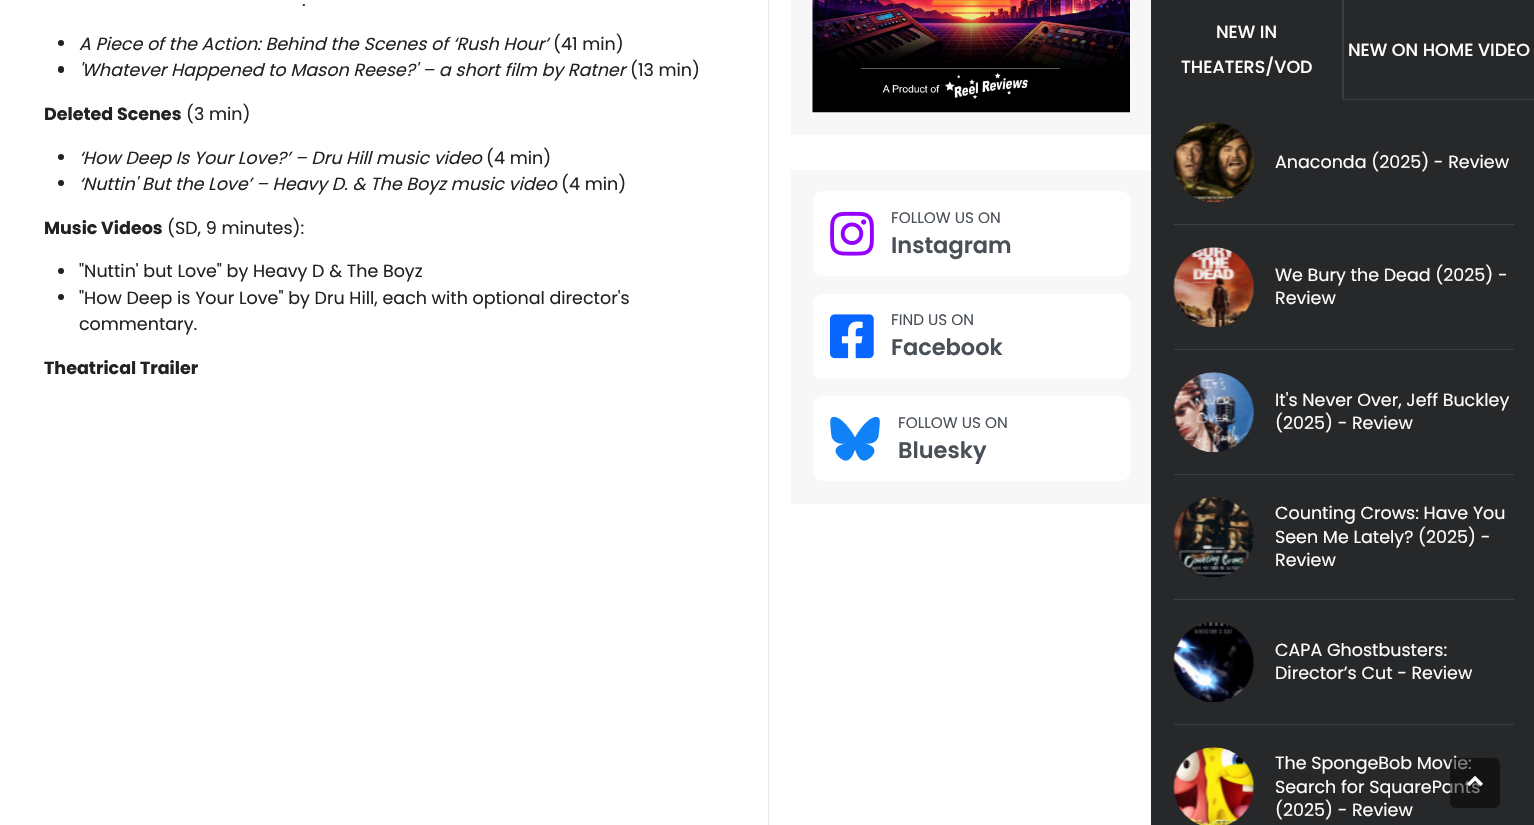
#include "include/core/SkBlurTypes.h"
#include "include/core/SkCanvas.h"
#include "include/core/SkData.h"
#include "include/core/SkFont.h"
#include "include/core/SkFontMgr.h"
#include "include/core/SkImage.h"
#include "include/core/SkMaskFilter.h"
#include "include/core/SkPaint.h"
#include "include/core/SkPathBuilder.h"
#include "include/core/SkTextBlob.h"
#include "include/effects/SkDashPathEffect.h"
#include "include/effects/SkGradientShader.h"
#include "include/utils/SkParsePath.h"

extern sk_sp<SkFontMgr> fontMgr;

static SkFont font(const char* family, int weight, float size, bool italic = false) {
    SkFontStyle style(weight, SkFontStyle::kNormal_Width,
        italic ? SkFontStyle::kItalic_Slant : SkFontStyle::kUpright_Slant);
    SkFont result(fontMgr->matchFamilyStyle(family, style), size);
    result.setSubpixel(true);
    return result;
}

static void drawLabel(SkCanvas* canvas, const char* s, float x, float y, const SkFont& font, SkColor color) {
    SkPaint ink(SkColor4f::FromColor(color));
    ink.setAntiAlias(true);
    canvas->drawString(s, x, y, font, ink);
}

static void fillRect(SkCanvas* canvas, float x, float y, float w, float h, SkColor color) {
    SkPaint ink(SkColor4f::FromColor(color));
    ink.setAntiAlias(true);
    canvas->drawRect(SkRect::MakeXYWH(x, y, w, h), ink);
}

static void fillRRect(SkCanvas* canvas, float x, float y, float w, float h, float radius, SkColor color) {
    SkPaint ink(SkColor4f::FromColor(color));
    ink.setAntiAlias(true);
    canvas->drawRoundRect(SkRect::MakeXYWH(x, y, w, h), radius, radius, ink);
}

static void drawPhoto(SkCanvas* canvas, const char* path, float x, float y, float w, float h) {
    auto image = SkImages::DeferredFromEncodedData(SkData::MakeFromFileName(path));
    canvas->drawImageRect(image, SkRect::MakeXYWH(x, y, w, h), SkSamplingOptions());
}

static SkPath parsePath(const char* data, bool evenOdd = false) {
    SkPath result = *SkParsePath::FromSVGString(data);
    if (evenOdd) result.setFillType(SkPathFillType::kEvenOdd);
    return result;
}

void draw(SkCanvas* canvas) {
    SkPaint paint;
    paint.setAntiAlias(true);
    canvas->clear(0xFFFFFFFF);
    SkFont font1 = font("Poppins", 400, 17.5f);
    drawLabel(canvas, ".", 302, 6, font1, 0xFF222222);
    paint.setColor(0xFF222222);
    canvas->drawCircle(61, 43, 3, paint);
    SkFont font2 = font("Poppins", 400, 17.5f, true);
    drawLabel(canvas, "A Piece of the Action: Behind the Scenes of ‘Rush Hour’", 79, 50, font2, 0xFF222222);
    drawLabel(canvas, "(41 min)", 553, 50, font1, 0xFF222222);
    fillRRect(canvas, 58, 66, 6, 7, 3, 0xFF222222);
    drawLabel(canvas, "'Whatever Happened to Mason Reese?' – a short film by Ratner", 79, 76, font2, 0xFF222222);
    drawLabel(canvas, "(13 min)", 630, 76, font1, 0xFF222222);
    SkFont font3 = font("Poppins", 700, 17.5f);
    drawLabel(canvas, "Deleted Scenes", 44, 120, font3, 0xFF222222);
    drawLabel(canvas, "(3 min)", 186, 120, font1, 0xFF222222);
    canvas->drawCircle(61, 157, 3, paint);
    drawLabel(canvas, "‘How Deep Is Your Love?’ – Dru Hill music video", 79, 164, font2, 0xFF222222);
    drawLabel(canvas, "(4 min)", 486, 164, font1, 0xFF222222);
    canvas->drawCircle(61, 183, 3, paint);
    drawLabel(canvas, "‘Nuttin' But the Love’ – Heavy D. & The Boyz music video", 79, 190, font2, 0xFF222222);
    drawLabel(canvas, "(4 min)", 561, 190, font1, 0xFF222222);
    drawLabel(canvas, "Music Videos", 44, 234, font3, 0xFF222222);
    drawLabel(canvas, "(SD, 9 minutes):", 167, 234, font1, 0xFF222222);
    canvas->drawCircle(61, 271, 3, paint);
    drawLabel(canvas, "\"Nuttin' but Love\" by Heavy D & The Boyz", 79, 277, font1, 0xFF222222);
    canvas->drawCircle(61, 297, 3, paint);
    drawLabel(canvas, "\"How Deep is Your Love\" by Dru Hill, each with optional director's", 79, 304, font1, 0xFF222222);
    drawLabel(canvas, "commentary.", 79, 330, font1, 0xFF222222);
    drawLabel(canvas, "Theatrical Trailer", 44, 374, font3, 0xFF222222);
    fillRect(canvas, 768, 0, 1, 825, 0xFFEBEBEC);
    fillRect(canvas, 791, 0, 360, 135, 0xFFF7F7F7);
    drawPhoto(canvas, "assets/img1.png", 812, 0, 318, 113);
    fillRect(canvas, 791, 170, 360, 334, 0xFFF7F7F7);
    fillRRect(canvas, 813, 191, 317, 85, 9, 0xFFFFFFFF);
    drawPhoto(canvas, "assets/img2.png", 830, 211, 44, 45);
    SkFont font4 = font("Poppins", 400, 15.25f);
    drawLabel(canvas, "FOLLOW US ON", 891, 223, font4, 0xFF495057);
    SkFont font5 = font("Poppins", 600, 22.5f);
    drawLabel(canvas, "Instagram", 891, 253, font5, 0xFF495057);
    fillRRect(canvas, 813, 294, 317, 85, 9, 0xFFFFFFFF);
    drawPhoto(canvas, "assets/img3.png", 830, 314, 44, 45);
    drawLabel(canvas, "FIND US ON", 891, 325, font4, 0xFF495057);
    drawLabel(canvas, "Facebook", 891, 355, font5, 0xFF495057);
    fillRRect(canvas, 813, 396, 317, 85, 9, 0xFFFFFFFF);
    drawPhoto(canvas, "assets/img4.png", 830, 416, 50, 45);
    drawLabel(canvas, "FOLLOW US ON", 898, 428, font4, 0xFF495057);
    drawLabel(canvas, "Bluesky", 898, 458, font5, 0xFF495057);
    fillRect(canvas, 1151, 0, 383, 825, 0xFF27282A);
    paint.setColor(0xFF3D3E3F);
    canvas->drawPath(parsePath("M1344 0V100L1342 99V0Z"), paint);
    SkFont font6 = font("Poppins", 500, 17.5f);
    drawLabel(canvas, "NEW IN", 1216, 38, font6, 0xFFFFFFFF);
    drawLabel(canvas, "THEATERS/VOD", 1181, 73, font6, 0xFFFFFFFF);
    fillRect(canvas, 1344, 99, 190, 1, 0xFF3D3E3F);
    drawLabel(canvas, "NEW ON HOME VIDEO", 1348, 56, font6, 0xFFFFFFFF);
    fillRect(canvas, 1174, 224, 340, 1, 0xFF3D3E3F);
    drawPhoto(canvas, "assets/img5.png", 1173, 122, 81, 81);
    drawLabel(canvas, "Anaconda (2025) - Review", 1275, 168, font1, 0xFFFFFFFF);
    fillRect(canvas, 1174, 349, 340, 1, 0xFF3D3E3F);
    drawPhoto(canvas, "assets/img6.png", 1173, 247, 82, 81);
    drawLabel(canvas, "We Bury the Dead (2025) -", 1275, 281, font1, 0xFFFFFFFF);
    drawLabel(canvas, "Review", 1275, 304, font1, 0xFFFFFFFF);
    fillRect(canvas, 1174, 474, 340, 1, 0xFF3D3E3F);
    drawPhoto(canvas, "assets/img7.png", 1173, 372, 82, 81);
    drawLabel(canvas, "It's Never Over, Jeff Buckley", 1275, 406, font1, 0xFFFFFFFF);
    drawLabel(canvas, "(2025) - Review", 1275, 429, font1, 0xFFFFFFFF);
    fillRect(canvas, 1174, 599, 340, 1, 0xFF3D3E3F);
    drawPhoto(canvas, "assets/img8.png", 1173, 497, 81, 80);
    drawLabel(canvas, "Counting Crows: Have You", 1275, 519, font1, 0xFFFFFFFF);
    drawLabel(canvas, "Seen Me Lately? (2025) -", 1275, 543, font1, 0xFFFFFFFF);
    drawLabel(canvas, "Review", 1275, 566, font1, 0xFFFFFFFF);
    fillRect(canvas, 1174, 724, 340, 1, 0xFF3D3E3F);
    drawPhoto(canvas, "assets/img9.png", 1173, 622, 81, 80);
    drawLabel(canvas, "CAPA Ghostbusters:", 1275, 656, font1, 0xFFFFFFFF);
    drawLabel(canvas, "Director’s Cut - Review", 1275, 679, font1, 0xFFFFFFFF);
    drawPhoto(canvas, "assets/img10.png", 1173, 747, 82, 78);
    drawLabel(canvas, "The SpongeBob Movie:", 1275, 769, font1, 0xFFFFFFFF);
    drawLabel(canvas, "Search for SquarePants", 1275, 793, font1, 0xFFFFFFFF);
    drawLabel(canvas, "(2025) - Review", 1275, 816, font1, 0xFFFFFFFF);
    fillRRect(canvas, 1450, 758, 50, 50, 6, 0x80000000);
    drawPhoto(canvas, "assets/img11.png", 1467, 776, 16, 10);
}
